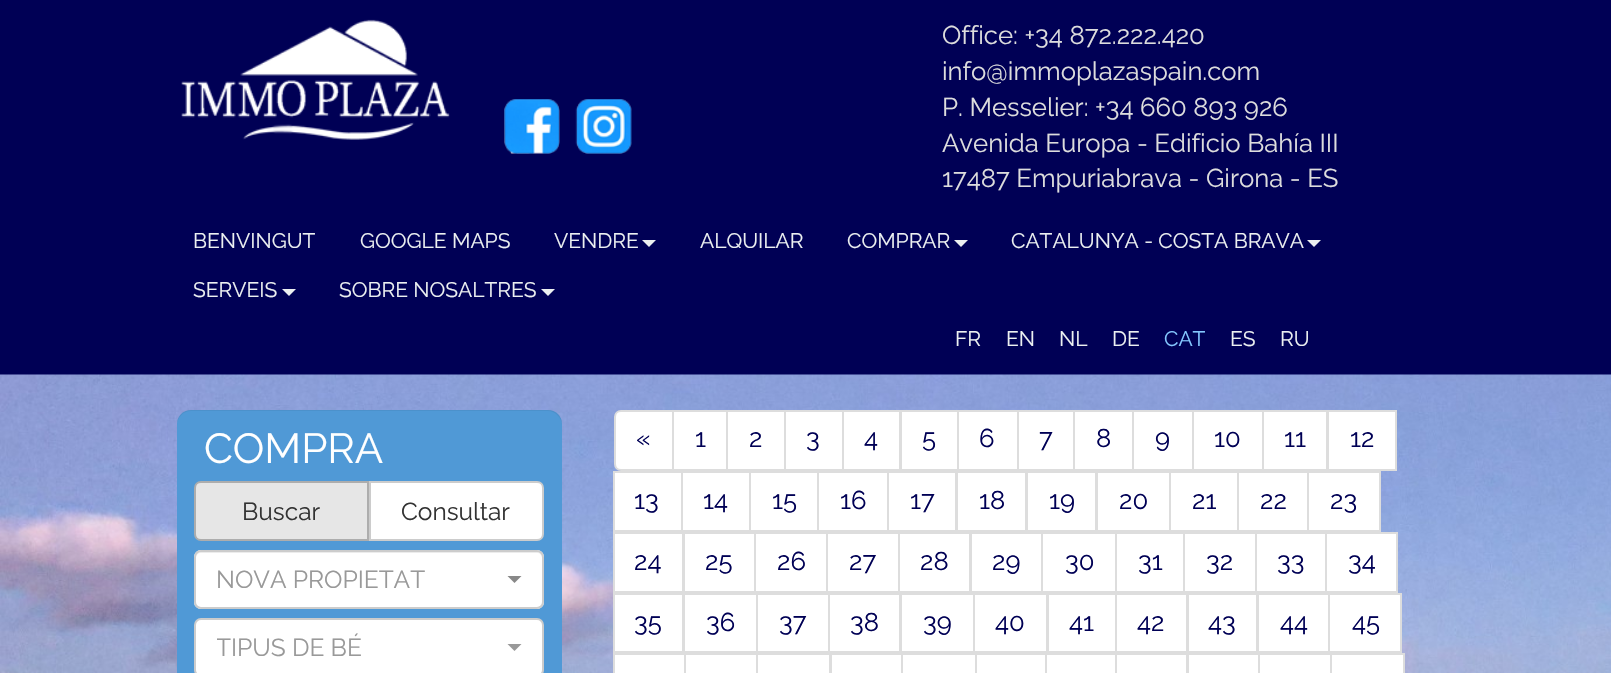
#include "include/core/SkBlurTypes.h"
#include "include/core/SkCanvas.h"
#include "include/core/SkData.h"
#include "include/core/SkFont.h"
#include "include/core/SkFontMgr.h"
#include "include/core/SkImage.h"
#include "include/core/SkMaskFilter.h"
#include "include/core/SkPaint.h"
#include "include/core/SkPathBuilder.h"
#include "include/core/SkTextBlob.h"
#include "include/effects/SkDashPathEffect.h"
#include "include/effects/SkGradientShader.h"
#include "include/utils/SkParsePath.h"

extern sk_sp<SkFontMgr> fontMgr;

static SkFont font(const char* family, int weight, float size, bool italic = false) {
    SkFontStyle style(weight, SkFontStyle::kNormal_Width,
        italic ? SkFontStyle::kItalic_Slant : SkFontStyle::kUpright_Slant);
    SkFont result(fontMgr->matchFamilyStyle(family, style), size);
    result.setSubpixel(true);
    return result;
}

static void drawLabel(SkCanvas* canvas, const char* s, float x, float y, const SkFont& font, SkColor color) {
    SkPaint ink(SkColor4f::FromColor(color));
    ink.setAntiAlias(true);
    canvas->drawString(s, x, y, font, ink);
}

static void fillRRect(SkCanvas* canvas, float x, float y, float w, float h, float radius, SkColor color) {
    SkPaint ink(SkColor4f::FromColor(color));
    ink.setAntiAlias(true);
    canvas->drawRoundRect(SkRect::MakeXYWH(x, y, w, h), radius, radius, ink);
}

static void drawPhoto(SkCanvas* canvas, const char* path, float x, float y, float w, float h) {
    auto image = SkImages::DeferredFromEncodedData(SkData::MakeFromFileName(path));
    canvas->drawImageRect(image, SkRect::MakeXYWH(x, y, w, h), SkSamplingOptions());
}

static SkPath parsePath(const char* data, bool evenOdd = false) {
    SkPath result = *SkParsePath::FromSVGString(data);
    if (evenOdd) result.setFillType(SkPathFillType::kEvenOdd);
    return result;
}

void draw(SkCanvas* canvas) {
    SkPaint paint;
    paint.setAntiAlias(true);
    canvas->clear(0xFF000055);
    drawPhoto(canvas, "assets/img1.png", 181, 19, 269, 121);
    drawPhoto(canvas, "assets/img2.png", 504, 99, 56, 55);
    drawPhoto(canvas, "assets/img3.png", 575, 99, 57, 55);
    SkFont font1 = font("Raleway", 100, 25.7f);
    drawLabel(canvas, "Office: +34 872.222.420", 942, 44, font1, 0xFFDDDDDD);
    drawLabel(canvas, "info@immoplazaspain.com", 942, 80, font1, 0xFFDDDDDD);
    drawLabel(canvas, "P. Messelier: +34 660 893 926", 942, 116, font1, 0xFFDDDDDD);
    drawLabel(canvas, "Avenida Europa - Edificio Bahía III", 942, 152, font1, 0xFFDDDDDD);
    drawLabel(canvas, "17487 Empuriabrava - Girona - ES", 942, 187, font1, 0xFFDDDDDD);
    SkFont font2 = font("Raleway", 100, 21);
    drawLabel(canvas, "BENVINGUT", 193, 248, font2, 0xFFECF0F1);
    drawLabel(canvas, "GOOGLE MAPS", 360, 248, font2, 0xFFECF0F1);
    drawLabel(canvas, "VENDRE", 554, 248, font2, 0xFFECF0F1);
    paint.setColor(0xFFECF0F1);
    canvas->drawPath(parsePath("M642 240H656L649 247Z"), paint);
    drawLabel(canvas, "ALQUILAR", 700, 248, font2, 0xFFECF0F1);
    drawLabel(canvas, "COMPRAR", 847, 248, font2, 0xFFECF0F1);
    canvas->drawPath(parsePath("M954 240H968L961 247Z"), paint);
    drawLabel(canvas, "CATALUNYA - COSTA BRAVA", 1011, 248, font2, 0xFFECF0F1);
    canvas->drawPath(parsePath("M1307 240H1321L1314 247Z"), paint);
    drawLabel(canvas, "SERVEIS", 193, 297, font2, 0xFFECF0F1);
    canvas->drawPath(parsePath("M282 289H296L289 296Z"), paint);
    drawLabel(canvas, "SOBRE NOSALTRES", 339, 297, font2, 0xFFECF0F1);
    canvas->drawPath(parsePath("M541 289H555L548 296Z"), paint);
    drawLabel(canvas, "FR", 955, 346, font2, 0xFFECF0F1);
    drawLabel(canvas, "EN", 1006, 346, font2, 0xFFECF0F1);
    drawLabel(canvas, "NL", 1059, 346, font2, 0xFFECF0F1);
    drawLabel(canvas, "DE", 1112, 346, font2, 0xFFECF0F1);
    drawLabel(canvas, "CAT", 1164, 346, font2, 0xFF84C7FF);
    drawLabel(canvas, "ES", 1230, 346, font2, 0xFFECF0F1);
    drawLabel(canvas, "RU", 1280, 346, font2, 0xFFECF0F1);
    drawPhoto(canvas, "assets/img4.png", 0, 374, 1611, 299);
    fillRRect(canvas, 177, 410, 385, 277, 14, 0xFF5099D6);
    paint.setColor(0x0D000000);
    canvas->drawPath(parsePath("M191 411H548C555 411 562 418 562 425V424C562 416 556 410 548 410H191C183 410 177 416 177 424V425C177 418 183 411 191 411Z"), paint);
    SkFont font3 = font("Raleway", 100, 42);
    drawLabel(canvas, "COMPRA", 204, 463, font3, 0xFFFFFFFF);
    paint.setColor(0xFFE6E6E6);
    canvas->drawPath(parsePath("M201 482H368V540H201C197.5 540 195 537.5 195 534V488C195 484.5 197.5 482 201 482Z"), paint);
    paint.setStroke(true);
    paint.setStrokeWidth(2);
    paint.setColor(0xFFADADAD);
    canvas->drawPath(parsePath("M201 482H368V540H201C197.5 540 195 537.5 195 534V488C195 484.5 197.5 482 201 482Z"), paint);
    SkFont font4 = font("Raleway", 100, 24.5f);
    drawLabel(canvas, "Buscar", 242, 520, font4, 0xFF333333);
    paint.setStroke(false);
    paint.setColor(0xFFFFFFFF);
    canvas->drawPath(parsePath("M370 482H537C540.5 482 543 484.5 543 488V534C543 537.5 540.5 540 537 540H370Z"), paint);
    paint.setStroke(true);
    paint.setColor(0xFFCCCCCC);
    canvas->drawPath(parsePath("M370 482H537C540.5 482 543 484.5 543 488V534C543 537.5 540.5 540 537 540H370Z"), paint);
    drawLabel(canvas, "Consultar", 401, 520, font4, 0xFF333333);
    fillRRect(canvas, 194, 550, 350, 59, 7, 0xFFFFFFFF);
    paint.setStroke(false);
    paint.setColor(0xFFECECEC);
    canvas->drawPath(parsePath("M201 553H537C540 553 542 555 542 558V605C543 604 543 603 543 602V556C543 553 541 551 538 551H201C198 551 196 553 196 556V558C196 555 198 553 201 553Z"), paint);
    paint.setStroke(true);
    paint.setColor(0xFFCCCCCC);
    canvas->drawRoundRect(SkRect::MakeXYWH(195, 551, 348, 57), 6, 6, paint);
    drawLabel(canvas, "NOVA PROPIETAT", 216, 588, font4, 0xFF999999);
    paint.setStroke(false);
    paint.setColor(0xFF888888);
    canvas->drawPath(parsePath("M507.5 576H521.5L514.5 583Z"), paint);
    paint.setColor(0xFFFFFFFF);
    canvas->drawRoundRect(SkRect::MakeXYWH(195, 619, 348, 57), 6, 6, paint);
    paint.setStroke(true);
    paint.setColor(0xFFCCCCCC);
    canvas->drawRoundRect(SkRect::MakeXYWH(195, 619, 348, 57), 6, 6, paint);
    canvas->save();
    canvas->clipRect(SkRect::MakeXYWH(217, 630, 282, 35));
    drawLabel(canvas, "TIPUS DE BÉ", 216, 656, font4, 0xFF999999);
    canvas->restore();
    paint.setStroke(false);
    paint.setColor(0xFF999999);
    canvas->drawPath(parsePath("M507.5 644H521.5L514.5 651Z"), paint);
    paint.setColor(0xFFFFFFFF);
    canvas->drawPath(parsePath("M621 411H673V470H621C617.5 470 615 467.5 615 464V417C615 413.5 617.5 411 621 411Z"), paint);
    paint.setStroke(true);
    paint.setColor(0xFFDDDDDD);
    canvas->drawPath(parsePath("M621 411H673V470H621C617.5 470 615 467.5 615 464V417C615 413.5 617.5 411 621 411Z"), paint);
    drawLabel(canvas, "«", 636, 447, font1, 0xFF000055);
    paint.setStroke(false);
    paint.setColor(0xFFFFFFFF);
    canvas->drawRect(SkRect::MakeXYWH(673, 411, 54, 59), paint);
    paint.setStroke(true);
    paint.setColor(0xFFDDDDDD);
    canvas->drawRect(SkRect::MakeXYWH(673, 411, 54, 59), paint);
    drawLabel(canvas, "1", 695, 447, font1, 0xFF000055);
    paint.setStroke(false);
    paint.setColor(0xFFFFFFFF);
    canvas->drawRect(SkRect::MakeXYWH(727, 411, 58, 59), paint);
    paint.setStroke(true);
    paint.setColor(0xFFDDDDDD);
    canvas->drawRect(SkRect::MakeXYWH(727, 411, 58, 59), paint);
    drawLabel(canvas, "2", 749, 447, font1, 0xFF000055);
    paint.setStroke(false);
    paint.setColor(0xFFFFFFFF);
    canvas->drawRect(SkRect::MakeXYWH(785, 411, 58, 59), paint);
    paint.setStroke(true);
    paint.setColor(0xFFDDDDDD);
    canvas->drawRect(SkRect::MakeXYWH(785, 411, 58, 59), paint);
    drawLabel(canvas, "3", 806, 447, font1, 0xFF000055);
    paint.setStroke(false);
    paint.setColor(0xFFFFFFFF);
    canvas->drawRect(SkRect::MakeXYWH(843, 411, 57, 59), paint);
    paint.setStroke(true);
    paint.setColor(0xFFDDDDDD);
    canvas->drawRect(SkRect::MakeXYWH(843, 411, 57, 59), paint);
    drawLabel(canvas, "4", 864, 447, font1, 0xFF000055);
    paint.setStroke(false);
    paint.setColor(0xFFFFFFFF);
    canvas->drawRect(SkRect::MakeXYWH(901, 411, 57, 59), paint);
    paint.setStroke(true);
    paint.setColor(0xFFDDDDDD);
    canvas->drawRect(SkRect::MakeXYWH(901, 411, 57, 59), paint);
    drawLabel(canvas, "5", 922, 447, font1, 0xFF000055);
    paint.setStroke(false);
    paint.setColor(0xFFFFFFFF);
    canvas->drawRect(SkRect::MakeXYWH(958, 411, 60, 59), paint);
    paint.setStroke(true);
    paint.setColor(0xFFDDDDDD);
    canvas->drawRect(SkRect::MakeXYWH(958, 411, 60, 59), paint);
    drawLabel(canvas, "6", 979, 447, font1, 0xFF000055);
    paint.setStroke(false);
    paint.setColor(0xFFFFFFFF);
    canvas->drawRect(SkRect::MakeXYWH(1018, 411, 56, 59), paint);
    paint.setStroke(true);
    paint.setColor(0xFFDDDDDD);
    canvas->drawRect(SkRect::MakeXYWH(1018, 411, 56, 59), paint);
    drawLabel(canvas, "7", 1039, 447, font1, 0xFF000055);
    paint.setStroke(false);
    paint.setColor(0xFFFFFFFF);
    canvas->drawRect(SkRect::MakeXYWH(1074, 411, 59, 59), paint);
    paint.setStroke(true);
    paint.setColor(0xFFDDDDDD);
    canvas->drawRect(SkRect::MakeXYWH(1074, 411, 59, 59), paint);
    drawLabel(canvas, "8", 1096, 447, font1, 0xFF000055);
    paint.setStroke(false);
    paint.setColor(0xFFFFFFFF);
    canvas->drawRect(SkRect::MakeXYWH(1133, 411, 60, 59), paint);
    paint.setStroke(true);
    paint.setColor(0xFFDDDDDD);
    canvas->drawRect(SkRect::MakeXYWH(1133, 411, 60, 59), paint);
    drawLabel(canvas, "9", 1155, 447, font1, 0xFF000055);
    paint.setStroke(false);
    paint.setColor(0xFFFFFFFF);
    canvas->drawRect(SkRect::MakeXYWH(1193, 411, 70, 59), paint);
    paint.setStroke(true);
    paint.setColor(0xFFDDDDDD);
    canvas->drawRect(SkRect::MakeXYWH(1193, 411, 70, 59), paint);
    drawLabel(canvas, "10", 1214, 447, font1, 0xFF000055);
    paint.setStroke(false);
    paint.setColor(0xFFFFFFFF);
    canvas->drawRect(SkRect::MakeXYWH(1263, 411, 64, 59), paint);
    paint.setStroke(true);
    paint.setColor(0xFFDDDDDD);
    canvas->drawRect(SkRect::MakeXYWH(1263, 411, 64, 59), paint);
    drawLabel(canvas, "11", 1284, 447, font1, 0xFF000055);
    paint.setStroke(false);
    paint.setColor(0xFFFFFFFF);
    canvas->drawRect(SkRect::MakeXYWH(1328, 411, 68, 59), paint);
    paint.setStroke(true);
    paint.setColor(0xFFDDDDDD);
    canvas->drawRect(SkRect::MakeXYWH(1328, 411, 68, 59), paint);
    drawLabel(canvas, "12", 1350, 447, font1, 0xFF000055);
    paint.setStroke(false);
    paint.setColor(0xFFFFFFFF);
    canvas->drawRect(SkRect::MakeXYWH(614, 472, 68, 59), paint);
    paint.setStroke(true);
    paint.setColor(0xFFDDDDDD);
    canvas->drawRect(SkRect::MakeXYWH(614, 472, 68, 59), paint);
    drawLabel(canvas, "13", 634, 509, font1, 0xFF000055);
    paint.setStroke(false);
    paint.setColor(0xFFFFFFFF);
    canvas->drawRect(SkRect::MakeXYWH(682, 472, 68, 59), paint);
    paint.setStroke(true);
    paint.setColor(0xFFDDDDDD);
    canvas->drawRect(SkRect::MakeXYWH(682, 472, 68, 59), paint);
    drawLabel(canvas, "14", 703, 509, font1, 0xFF000055);
    paint.setStroke(false);
    paint.setColor(0xFFFFFFFF);
    canvas->drawRect(SkRect::MakeXYWH(750, 472, 68, 59), paint);
    paint.setStroke(true);
    paint.setColor(0xFFDDDDDD);
    canvas->drawRect(SkRect::MakeXYWH(750, 472, 68, 59), paint);
    drawLabel(canvas, "15", 772, 509, font1, 0xFF000055);
    paint.setStroke(false);
    paint.setColor(0xFFFFFFFF);
    canvas->drawRect(SkRect::MakeXYWH(818, 472, 70, 59), paint);
    paint.setStroke(true);
    paint.setColor(0xFFDDDDDD);
    canvas->drawRect(SkRect::MakeXYWH(818, 472, 70, 59), paint);
    drawLabel(canvas, "16", 840, 509, font1, 0xFF000055);
    paint.setStroke(false);
    paint.setColor(0xFFFFFFFF);
    canvas->drawRect(SkRect::MakeXYWH(888, 472, 68, 59), paint);
    paint.setStroke(true);
    paint.setColor(0xFFDDDDDD);
    canvas->drawRect(SkRect::MakeXYWH(888, 472, 68, 59), paint);
    drawLabel(canvas, "17", 910, 509, font1, 0xFF000055);
    paint.setStroke(false);
    paint.setColor(0xFFFFFFFF);
    canvas->drawRect(SkRect::MakeXYWH(957, 472, 69, 59), paint);
    paint.setStroke(true);
    paint.setColor(0xFFDDDDDD);
    canvas->drawRect(SkRect::MakeXYWH(957, 472, 69, 59), paint);
    drawLabel(canvas, "18", 979, 509, font1, 0xFF000055);
    paint.setStroke(false);
    paint.setColor(0xFFFFFFFF);
    canvas->drawRect(SkRect::MakeXYWH(1027, 472, 69, 59), paint);
    paint.setStroke(true);
    paint.setColor(0xFFDDDDDD);
    canvas->drawRect(SkRect::MakeXYWH(1027, 472, 69, 59), paint);
    drawLabel(canvas, "19", 1049, 509, font1, 0xFF000055);
    paint.setStroke(false);
    paint.setColor(0xFFFFFFFF);
    canvas->drawRect(SkRect::MakeXYWH(1097, 472, 73, 59), paint);
    paint.setStroke(true);
    paint.setColor(0xFFDDDDDD);
    canvas->drawRect(SkRect::MakeXYWH(1097, 472, 73, 59), paint);
    drawLabel(canvas, "20", 1119, 509, font1, 0xFF000055);
    paint.setStroke(false);
    paint.setColor(0xFFFFFFFF);
    canvas->drawRect(SkRect::MakeXYWH(1170, 472, 68, 59), paint);
    paint.setStroke(true);
    paint.setColor(0xFFDDDDDD);
    canvas->drawRect(SkRect::MakeXYWH(1170, 472, 68, 59), paint);
    drawLabel(canvas, "21", 1192, 509, font1, 0xFF000055);
    paint.setStroke(false);
    paint.setColor(0xFFFFFFFF);
    canvas->drawRect(SkRect::MakeXYWH(1238, 472, 70, 59), paint);
    paint.setStroke(true);
    paint.setColor(0xFFDDDDDD);
    canvas->drawRect(SkRect::MakeXYWH(1238, 472, 70, 59), paint);
    drawLabel(canvas, "22", 1260, 509, font1, 0xFF000055);
    paint.setStroke(false);
    paint.setColor(0xFFFFFFFF);
    canvas->drawRect(SkRect::MakeXYWH(1308, 472, 72, 59), paint);
    paint.setStroke(true);
    paint.setColor(0xFFDDDDDD);
    canvas->drawRect(SkRect::MakeXYWH(1308, 472, 72, 59), paint);
    drawLabel(canvas, "23", 1330, 509, font1, 0xFF000055);
    paint.setStroke(false);
    paint.setColor(0xFFFFFFFF);
    canvas->drawRect(SkRect::MakeXYWH(614, 533, 69, 59), paint);
    paint.setStroke(true);
    paint.setColor(0xFFDDDDDD);
    canvas->drawRect(SkRect::MakeXYWH(614, 533, 69, 59), paint);
    drawLabel(canvas, "24", 634, 570, font1, 0xFF000055);
    paint.setStroke(false);
    paint.setColor(0xFFFFFFFF);
    canvas->drawRect(SkRect::MakeXYWH(684, 533, 71, 59), paint);
    paint.setStroke(true);
    paint.setColor(0xFFDDDDDD);
    canvas->drawRect(SkRect::MakeXYWH(684, 533, 71, 59), paint);
    drawLabel(canvas, "25", 705, 570, font1, 0xFF000055);
    paint.setStroke(false);
    paint.setColor(0xFFFFFFFF);
    canvas->drawRect(SkRect::MakeXYWH(755, 533, 72, 59), paint);
    paint.setStroke(true);
    paint.setColor(0xFFDDDDDD);
    canvas->drawRect(SkRect::MakeXYWH(755, 533, 72, 59), paint);
    drawLabel(canvas, "26", 777, 570, font1, 0xFF000055);
    paint.setStroke(false);
    paint.setColor(0xFFFFFFFF);
    canvas->drawRect(SkRect::MakeXYWH(827, 533, 72, 59), paint);
    paint.setStroke(true);
    paint.setColor(0xFFDDDDDD);
    canvas->drawRect(SkRect::MakeXYWH(827, 533, 72, 59), paint);
    drawLabel(canvas, "27", 849, 570, font1, 0xFF000055);
    paint.setStroke(false);
    paint.setColor(0xFFFFFFFF);
    canvas->drawRect(SkRect::MakeXYWH(899, 533, 71, 59), paint);
    paint.setStroke(true);
    paint.setColor(0xFFDDDDDD);
    canvas->drawRect(SkRect::MakeXYWH(899, 533, 71, 59), paint);
    drawLabel(canvas, "28", 920, 570, font1, 0xFF000055);
    paint.setStroke(false);
    paint.setColor(0xFFFFFFFF);
    canvas->drawRect(SkRect::MakeXYWH(971, 533, 71, 59), paint);
    paint.setStroke(true);
    paint.setColor(0xFFDDDDDD);
    canvas->drawRect(SkRect::MakeXYWH(971, 533, 71, 59), paint);
    drawLabel(canvas, "29", 992, 570, font1, 0xFF000055);
    paint.setStroke(false);
    paint.setColor(0xFFFFFFFF);
    canvas->drawRect(SkRect::MakeXYWH(1042, 533, 74, 59), paint);
    paint.setStroke(true);
    paint.setColor(0xFFDDDDDD);
    canvas->drawRect(SkRect::MakeXYWH(1042, 533, 74, 59), paint);
    drawLabel(canvas, "30", 1065, 570, font1, 0xFF000055);
    paint.setStroke(false);
    paint.setColor(0xFFFFFFFF);
    canvas->drawRect(SkRect::MakeXYWH(1116, 533, 68, 59), paint);
    paint.setStroke(true);
    paint.setColor(0xFFDDDDDD);
    canvas->drawRect(SkRect::MakeXYWH(1116, 533, 68, 59), paint);
    drawLabel(canvas, "31", 1138, 570, font1, 0xFF000055);
    paint.setStroke(false);
    paint.setColor(0xFFFFFFFF);
    canvas->drawRect(SkRect::MakeXYWH(1184, 533, 72, 59), paint);
    paint.setStroke(true);
    paint.setColor(0xFFDDDDDD);
    canvas->drawRect(SkRect::MakeXYWH(1184, 533, 72, 59), paint);
    drawLabel(canvas, "32", 1206, 570, font1, 0xFF000055);
    paint.setStroke(false);
    paint.setColor(0xFFFFFFFF);
    canvas->drawRect(SkRect::MakeXYWH(1256, 533, 70, 59), paint);
    paint.setStroke(true);
    paint.setColor(0xFFDDDDDD);
    canvas->drawRect(SkRect::MakeXYWH(1256, 533, 70, 59), paint);
    drawLabel(canvas, "33", 1277, 570, font1, 0xFF000055);
    paint.setStroke(false);
    paint.setColor(0xFFFFFFFF);
    canvas->drawRect(SkRect::MakeXYWH(1326, 533, 71, 59), paint);
    paint.setStroke(true);
    paint.setColor(0xFFDDDDDD);
    canvas->drawRect(SkRect::MakeXYWH(1326, 533, 71, 59), paint);
    drawLabel(canvas, "34", 1348, 570, font1, 0xFF000055);
    paint.setStroke(false);
    paint.setColor(0xFFFFFFFF);
    canvas->drawRect(SkRect::MakeXYWH(614, 594, 69, 58), paint);
    paint.setStroke(true);
    paint.setColor(0xFFDDDDDD);
    canvas->drawRect(SkRect::MakeXYWH(614, 594, 69, 58), paint);
    drawLabel(canvas, "35", 634, 631, font1, 0xFF000055);
    paint.setStroke(false);
    paint.setColor(0xFFFFFFFF);
    canvas->drawRect(SkRect::MakeXYWH(684, 594, 73, 58), paint);
    paint.setStroke(true);
    paint.setColor(0xFFDDDDDD);
    canvas->drawRect(SkRect::MakeXYWH(684, 594, 73, 58), paint);
    drawLabel(canvas, "36", 706, 631, font1, 0xFF000055);
    paint.setStroke(false);
    paint.setColor(0xFFFFFFFF);
    canvas->drawRect(SkRect::MakeXYWH(757, 594, 72, 58), paint);
    paint.setStroke(true);
    paint.setColor(0xFFDDDDDD);
    canvas->drawRect(SkRect::MakeXYWH(757, 594, 72, 58), paint);
    drawLabel(canvas, "37", 779, 631, font1, 0xFF000055);
    paint.setStroke(false);
    paint.setColor(0xFFFFFFFF);
    canvas->drawRect(SkRect::MakeXYWH(829, 594, 71, 58), paint);
    paint.setStroke(true);
    paint.setColor(0xFFDDDDDD);
    canvas->drawRect(SkRect::MakeXYWH(829, 594, 71, 58), paint);
    drawLabel(canvas, "38", 850, 631, font1, 0xFF000055);
    paint.setStroke(false);
    paint.setColor(0xFFFFFFFF);
    canvas->drawRect(SkRect::MakeXYWH(901, 594, 73, 58), paint);
    paint.setStroke(true);
    paint.setColor(0xFFDDDDDD);
    canvas->drawRect(SkRect::MakeXYWH(901, 594, 73, 58), paint);
    drawLabel(canvas, "39", 923, 631, font1, 0xFF000055);
    paint.setStroke(false);
    paint.setColor(0xFFFFFFFF);
    canvas->drawRect(SkRect::MakeXYWH(974, 594, 73, 58), paint);
    paint.setStroke(true);
    paint.setColor(0xFFDDDDDD);
    canvas->drawRect(SkRect::MakeXYWH(974, 594, 73, 58), paint);
    drawLabel(canvas, "40", 995, 631, font1, 0xFF000055);
    paint.setStroke(false);
    paint.setColor(0xFFFFFFFF);
    canvas->drawRect(SkRect::MakeXYWH(1048, 594, 68, 58), paint);
    paint.setStroke(true);
    paint.setColor(0xFFDDDDDD);
    canvas->drawRect(SkRect::MakeXYWH(1048, 594, 68, 58), paint);
    drawLabel(canvas, "41", 1069, 631, font1, 0xFF000055);
    paint.setStroke(false);
    paint.setColor(0xFFFFFFFF);
    canvas->drawRect(SkRect::MakeXYWH(1116, 594, 71, 58), paint);
    paint.setStroke(true);
    paint.setColor(0xFFDDDDDD);
    canvas->drawRect(SkRect::MakeXYWH(1116, 594, 71, 58), paint);
    drawLabel(canvas, "42", 1137, 631, font1, 0xFF000055);
    paint.setStroke(false);
    paint.setColor(0xFFFFFFFF);
    canvas->drawRect(SkRect::MakeXYWH(1188, 594, 69, 58), paint);
    paint.setStroke(true);
    paint.setColor(0xFFDDDDDD);
    canvas->drawRect(SkRect::MakeXYWH(1188, 594, 69, 58), paint);
    drawLabel(canvas, "43", 1208, 631, font1, 0xFF000055);
    paint.setStroke(false);
    paint.setColor(0xFFFFFFFF);
    canvas->drawRect(SkRect::MakeXYWH(1258, 594, 71, 58), paint);
    paint.setStroke(true);
    paint.setColor(0xFFDDDDDD);
    canvas->drawRect(SkRect::MakeXYWH(1258, 594, 71, 58), paint);
    drawLabel(canvas, "44", 1280, 631, font1, 0xFF000055);
    paint.setStroke(false);
    paint.setColor(0xFFFFFFFF);
    canvas->drawRect(SkRect::MakeXYWH(1329, 594, 72, 58), paint);
    paint.setStroke(true);
    paint.setColor(0xFFDDDDDD);
    canvas->drawRect(SkRect::MakeXYWH(1329, 594, 72, 58), paint);
    drawLabel(canvas, "45", 1352, 631, font1, 0xFF000055);
    paint.setStroke(false);
    paint.setColor(0xFFFFFFFF);
    canvas->drawRect(SkRect::MakeXYWH(614, 654, 71, 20), paint);
    paint.setStroke(true);
    paint.setColor(0xFFDDDDDD);
    canvas->drawRect(SkRect::MakeXYWH(614, 654, 71, 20), paint);
    paint.setStroke(false);
    paint.setColor(0xFFFFFFFF);
    canvas->drawRect(SkRect::MakeXYWH(685, 654, 72, 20), paint);
    paint.setStroke(true);
    paint.setColor(0xFFDDDDDD);
    canvas->drawRect(SkRect::MakeXYWH(685, 654, 72, 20), paint);
    paint.setStroke(false);
    paint.setColor(0xFFFFFFFF);
    canvas->drawRect(SkRect::MakeXYWH(757, 654, 73, 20), paint);
    paint.setStroke(true);
    paint.setColor(0xFFDDDDDD);
    canvas->drawRect(SkRect::MakeXYWH(757, 654, 73, 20), paint);
    paint.setStroke(false);
    paint.setColor(0xFFFFFFFF);
    canvas->drawRect(SkRect::MakeXYWH(831, 654, 71, 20), paint);
    paint.setStroke(true);
    paint.setColor(0xFFDDDDDD);
    canvas->drawRect(SkRect::MakeXYWH(831, 654, 71, 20), paint);
    paint.setStroke(false);
    paint.setColor(0xFFFFFFFF);
    canvas->drawRect(SkRect::MakeXYWH(902, 654, 74, 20), paint);
    paint.setStroke(true);
    paint.setColor(0xFFDDDDDD);
    canvas->drawRect(SkRect::MakeXYWH(902, 654, 74, 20), paint);
    paint.setStroke(false);
    paint.setColor(0xFFFFFFFF);
    canvas->drawRect(SkRect::MakeXYWH(976, 654, 70, 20), paint);
    paint.setStroke(true);
    paint.setColor(0xFFDDDDDD);
    canvas->drawRect(SkRect::MakeXYWH(976, 654, 70, 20), paint);
    paint.setStroke(false);
    paint.setColor(0xFFFFFFFF);
    canvas->drawRect(SkRect::MakeXYWH(1046, 654, 70, 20), paint);
    paint.setStroke(true);
    paint.setColor(0xFFDDDDDD);
    canvas->drawRect(SkRect::MakeXYWH(1046, 654, 70, 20), paint);
    paint.setStroke(false);
    paint.setColor(0xFFFFFFFF);
    canvas->drawRect(SkRect::MakeXYWH(1116, 654, 71, 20), paint);
    paint.setStroke(true);
    paint.setColor(0xFFDDDDDD);
    canvas->drawRect(SkRect::MakeXYWH(1116, 654, 71, 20), paint);
    paint.setStroke(false);
    paint.setColor(0xFFFFFFFF);
    canvas->drawRect(SkRect::MakeXYWH(1188, 654, 71, 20), paint);
    paint.setStroke(true);
    paint.setColor(0xFFDDDDDD);
    canvas->drawRect(SkRect::MakeXYWH(1188, 654, 71, 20), paint);
    paint.setStroke(false);
    paint.setColor(0xFFFFFFFF);
    canvas->drawRect(SkRect::MakeXYWH(1259, 654, 72, 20), paint);
    paint.setStroke(true);
    paint.setColor(0xFFDDDDDD);
    canvas->drawRect(SkRect::MakeXYWH(1259, 654, 72, 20), paint);
    paint.setStroke(false);
    paint.setColor(0xFFFFFFFF);
    canvas->drawRect(SkRect::MakeXYWH(1331, 654, 73, 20), paint);
    paint.setStroke(true);
    paint.setColor(0xFFDDDDDD);
    canvas->drawRect(SkRect::MakeXYWH(1331, 654, 73, 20), paint);
}
